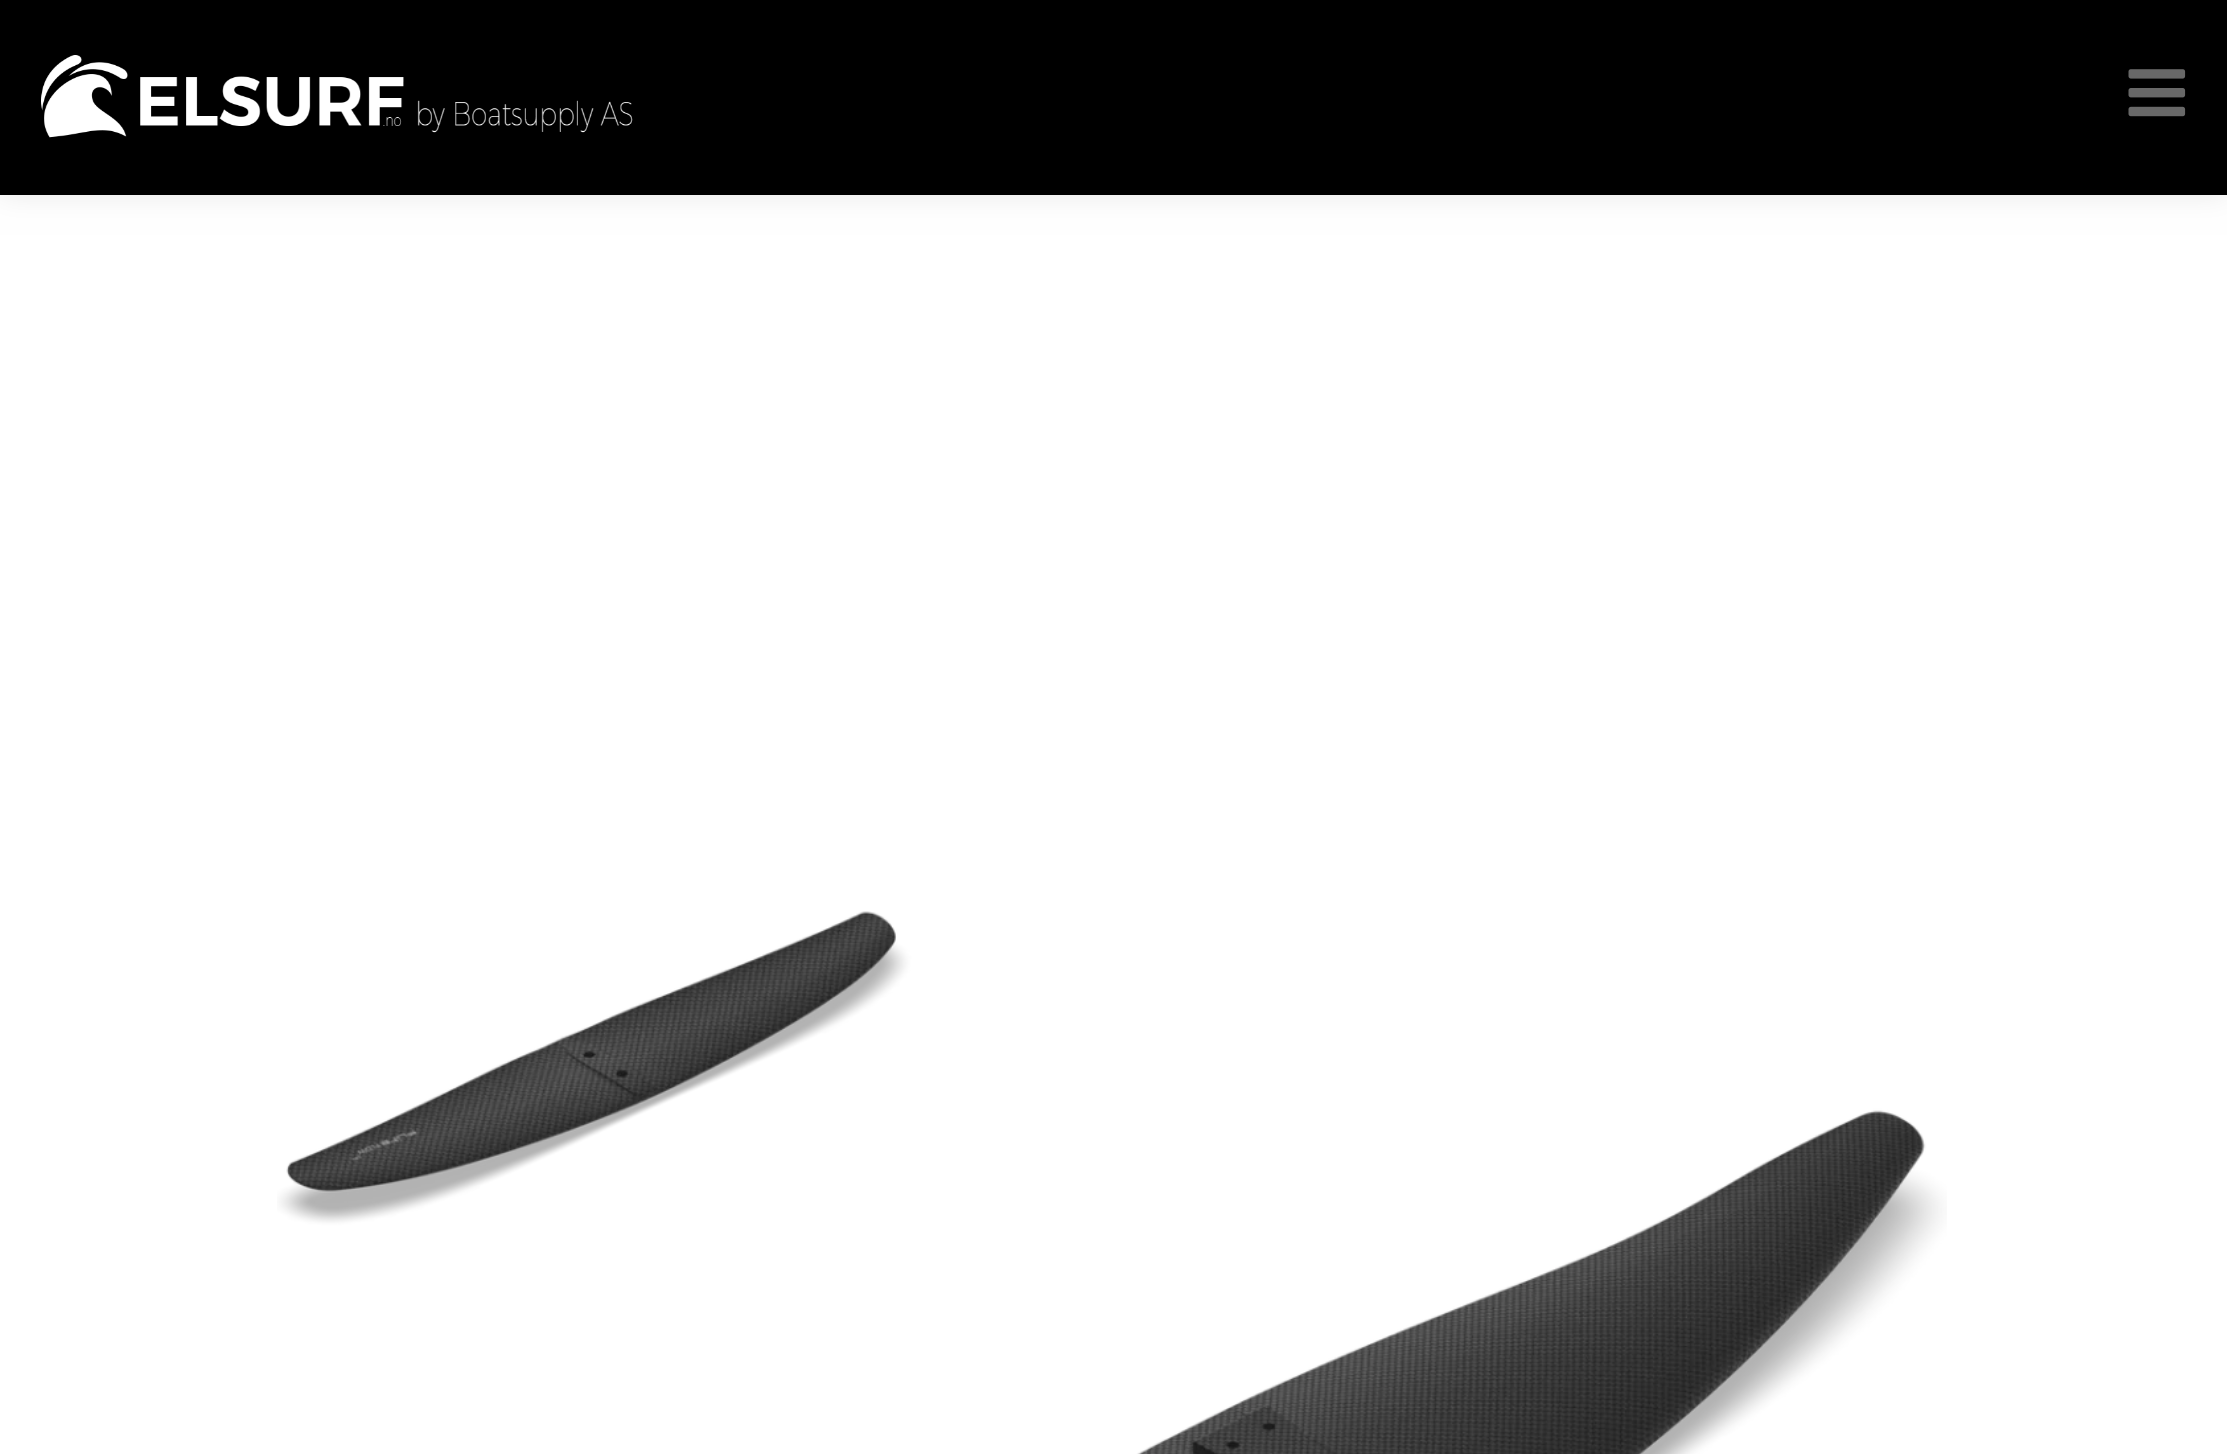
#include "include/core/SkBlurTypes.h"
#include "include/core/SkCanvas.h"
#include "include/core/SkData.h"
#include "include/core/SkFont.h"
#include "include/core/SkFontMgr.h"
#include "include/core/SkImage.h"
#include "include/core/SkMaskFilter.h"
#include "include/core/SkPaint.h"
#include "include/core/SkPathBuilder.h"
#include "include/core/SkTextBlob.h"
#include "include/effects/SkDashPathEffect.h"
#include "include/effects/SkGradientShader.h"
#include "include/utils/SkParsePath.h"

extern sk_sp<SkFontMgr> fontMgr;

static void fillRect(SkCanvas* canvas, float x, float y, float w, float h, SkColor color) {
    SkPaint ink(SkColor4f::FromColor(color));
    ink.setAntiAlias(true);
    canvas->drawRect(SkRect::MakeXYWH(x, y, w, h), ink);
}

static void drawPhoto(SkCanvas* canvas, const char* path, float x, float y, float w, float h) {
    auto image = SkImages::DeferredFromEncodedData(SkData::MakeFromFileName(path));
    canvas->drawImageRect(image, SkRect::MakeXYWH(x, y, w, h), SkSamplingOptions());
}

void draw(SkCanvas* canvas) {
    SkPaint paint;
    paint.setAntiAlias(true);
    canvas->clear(0xFFFFFFFF);
    fillRect(canvas, 0, 193, 2227, 2, 0xFF000000);
    paint.setColor(0x1A000000);
    paint.setMaskFilter(SkMaskFilter::MakeBlur(kNormal_SkBlurStyle, 14));
    canvas->drawRect(SkRect::MakeXYWH(0, 0, 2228, 193), paint);
    paint.setMaskFilter(nullptr);
    fillRect(canvas, 0, 0, 2227, 193, 0xFF000000);
    drawPhoto(canvas, "assets/img1.png", 41, 55, 592, 83);
    drawPhoto(canvas, "assets/img2.png", 2128, 69, 58, 48);
    drawPhoto(canvas, "assets/img3.png", 277, 911, 1670, 543);
}
